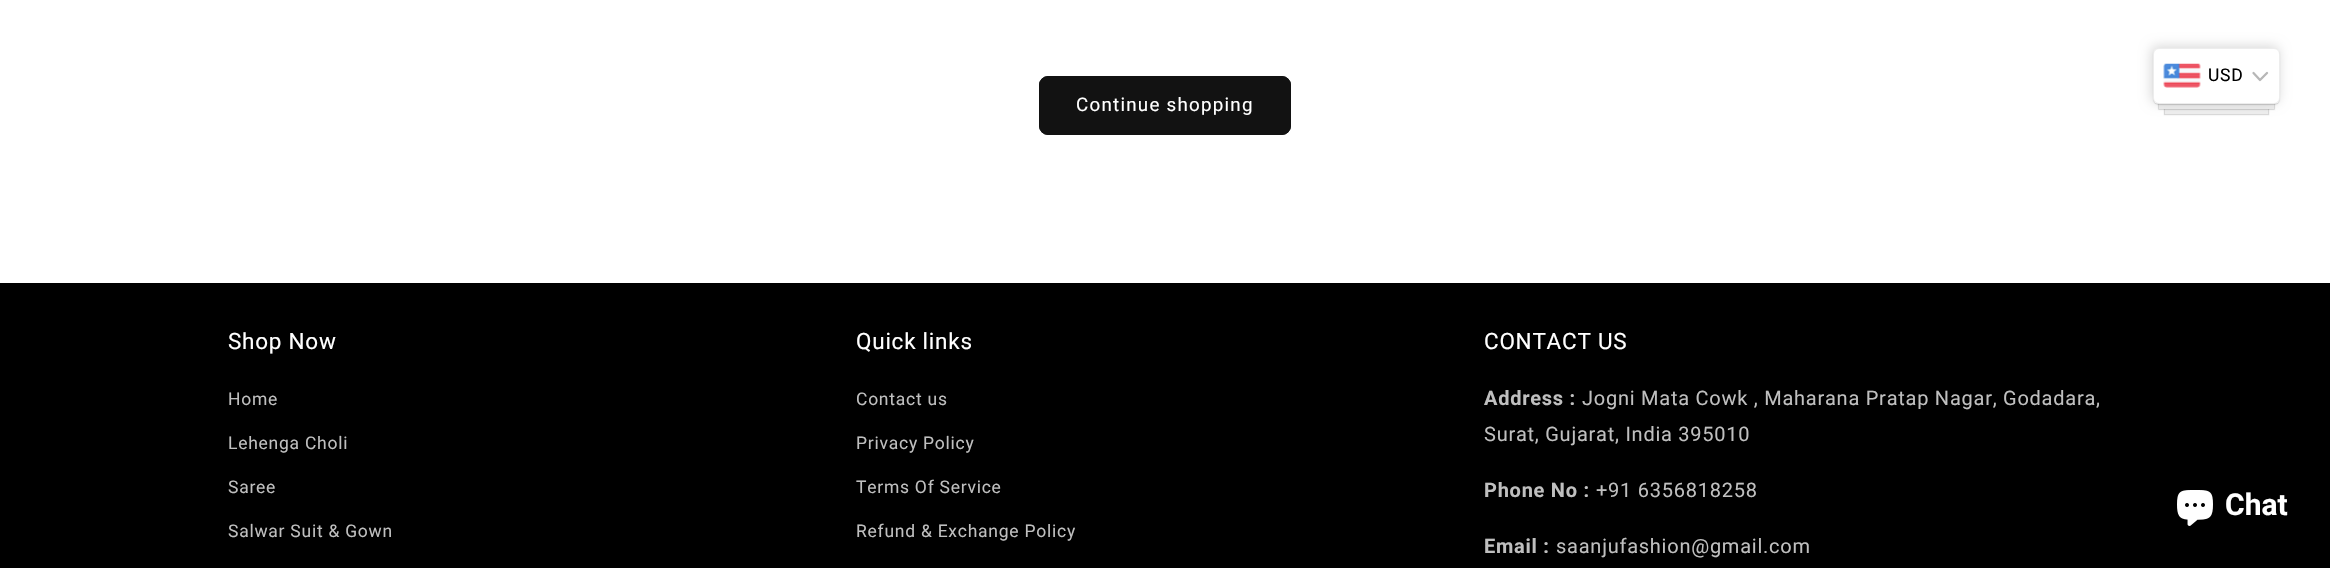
#include "include/core/SkBlurTypes.h"
#include "include/core/SkCanvas.h"
#include "include/core/SkData.h"
#include "include/core/SkFont.h"
#include "include/core/SkFontMgr.h"
#include "include/core/SkImage.h"
#include "include/core/SkMaskFilter.h"
#include "include/core/SkPaint.h"
#include "include/core/SkPathBuilder.h"
#include "include/core/SkTextBlob.h"
#include "include/effects/SkDashPathEffect.h"
#include "include/effects/SkGradientShader.h"
#include "include/utils/SkParsePath.h"

extern sk_sp<SkFontMgr> fontMgr;

static SkFont font(const char* family, int weight, float size, bool italic = false) {
    SkFontStyle style(weight, SkFontStyle::kNormal_Width,
        italic ? SkFontStyle::kItalic_Slant : SkFontStyle::kUpright_Slant);
    SkFont result(fontMgr->matchFamilyStyle(family, style), size);
    result.setSubpixel(true);
    return result;
}

static void drawLabel(SkCanvas* canvas, const char* s, float x, float y, const SkFont& font, SkColor color) {
    SkPaint ink(SkColor4f::FromColor(color));
    ink.setAntiAlias(true);
    canvas->drawString(s, x, y, font, ink);
}

static void drawTracked(SkCanvas* canvas, const char* s, float x, float y, const SkFont& font, const SkPaint& ink, float letter, float word) {
    std::vector<SkGlyphID> glyphs(font.countText(s, strlen(s), SkTextEncoding::kUTF8));
    std::vector<float> xs(glyphs.size());
    font.textToGlyphs(s, strlen(s), SkTextEncoding::kUTF8, glyphs);
    font.getXPos(glyphs, xs, x);
    float extra = 0;
    for (size_t i = 0; i < glyphs.size(); i++) {
        xs[i] += extra;
        extra += letter + word * (glyphs[i] == font.unicharToGlyph(' '));
    }
    canvas->drawTextBlob(SkTextBlob::MakeFromPosHGlyphs(glyphs, xs, y, font), 0, 0, ink);
}

static void fillRect(SkCanvas* canvas, float x, float y, float w, float h, SkColor color) {
    SkPaint ink(SkColor4f::FromColor(color));
    ink.setAntiAlias(true);
    canvas->drawRect(SkRect::MakeXYWH(x, y, w, h), ink);
}

static void fillRRect(SkCanvas* canvas, float x, float y, float w, float h, float radius, SkColor color) {
    SkPaint ink(SkColor4f::FromColor(color));
    ink.setAntiAlias(true);
    canvas->drawRoundRect(SkRect::MakeXYWH(x, y, w, h), radius, radius, ink);
}

static void drawPhoto(SkCanvas* canvas, const char* path, float x, float y, float w, float h) {
    auto image = SkImages::DeferredFromEncodedData(SkData::MakeFromFileName(path));
    canvas->drawImageRect(image, SkRect::MakeXYWH(x, y, w, h), SkSamplingOptions());
}

static SkPath parsePath(const char* data, bool evenOdd = false) {
    SkPath result = *SkParsePath::FromSVGString(data);
    if (evenOdd) result.setFillType(SkPathFillType::kEvenOdd);
    return result;
}

void draw(SkCanvas* canvas) {
    SkPaint paint;
    paint.setAntiAlias(true);
    canvas->clear(0xFFFFFFFF);
    paint.setColor(0x26000000);
    paint.setMaskFilter(SkMaskFilter::MakeBlur(kNormal_SkBlurStyle, 0.5f));
    canvas->drawRect(SkRect::MakeXYWH(2164, 81, 105, 34), paint);
    paint.setMaskFilter(nullptr);
    fillRect(canvas, 2165, 109, 103, 5, 0xFFEEEEEE);
    paint.setMaskFilter(SkMaskFilter::MakeBlur(kNormal_SkBlurStyle, 0.5f));
    canvas->drawRoundRect(SkRect::MakeXYWH(2158, 64, 117, 46), 1, 1, paint);
    paint.setMaskFilter(nullptr);
    fillRect(canvas, 2159, 104, 115, 5, 0xFFEEEEEE);
    paint.setMaskFilter(SkMaskFilter::MakeBlur(kNormal_SkBlurStyle, 0.5f));
    canvas->drawRoundRect(SkRect::MakeXYWH(2153, 49, 127, 56), 6, 6, paint);
    paint.setMaskFilter(nullptr);
    paint.setMaskFilter(SkMaskFilter::MakeBlur(kNormal_SkBlurStyle, 6));
    canvas->drawRoundRect(SkRect::MakeXYWH(2151, 46, 128, 57), 6, 6, paint);
    paint.setMaskFilter(nullptr);
    fillRRect(canvas, 2153, 48, 127, 56, 6, 0xFFFFFFFF);
    paint.setStroke(true);
    paint.setStrokeWidth(1);
    paint.setColor(0x5CCCCCCC);
    canvas->drawRoundRect(SkRect::MakeXYWH(2153.5f, 48.5f, 126, 55), 5.5f, 5.5f, paint);
    drawPhoto(canvas, "assets/img1.png", 2163, 63, 38, 25);
    SkFont font1 = font("Roboto", 400, 17.5f);
    paint.setStroke(false);
    paint.setColor(0xFF000000);
    drawTracked(canvas, "USD", 2208, 81, font1, paint, 0.75f, 0);
    paint.setStroke(true);
    paint.setStrokeWidth(2.3f);
    paint.setStrokeCap(SkPaint::kRound_Cap);
    paint.setStrokeJoin(SkPaint::kRound_Join);
    paint.setColor(0xFFB7B7B7);
    canvas->drawPath(parsePath("M2253.5 73L2260 80L2267 73"), paint);
    fillRRect(canvas, 1039, 76, 252, 59, 9, 0xFF121212);
    paint.setStrokeWidth(1);
    paint.setStrokeCap(SkPaint::kButt_Cap);
    paint.setStrokeJoin(SkPaint::kMiter_Join);
    paint.setColor(0xFF121212);
    canvas->drawRoundRect(SkRect::MakeXYWH(1039.5f, 76.5f, 251, 58), 8.5f, 8.5f, paint);
    SkFont font2 = font("Roboto", 400, 18.75f);
    paint.setStroke(false);
    paint.setColor(0xFFFFFFFF);
    drawTracked(canvas, "Continue shopping", 1076, 111, font2, paint, 1.25f, 0);
    fillRect(canvas, 0, 283, 2330, 285, 0xFF000000);
    SkFont font3 = font("Roboto", 400, 22.5f);
    drawTracked(canvas, "Shop Now", 228, 349, font3, paint, 0.75f, 0);
    paint.setColor(0xFFBFBFBF);
    drawTracked(canvas, "Home", 228, 405, font1, paint, 0.75f, 0);
    drawTracked(canvas, "Lehenga Choli", 228, 449, font1, paint, 0.75f, 0);
    drawTracked(canvas, "Saree", 228, 493, font1, paint, 0.75f, 0);
    drawTracked(canvas, "Salwar Suit & Gown", 228, 537, font1, paint, 0.75f, 0);
    paint.setColor(0xFFFFFFFF);
    drawTracked(canvas, "Quick links", 856, 349, font3, paint, 0.75f, 0);
    paint.setColor(0xFFBFBFBF);
    drawTracked(canvas, "Contact us", 856, 405, font1, paint, 0.75f, 0);
    drawTracked(canvas, "Privacy Policy", 856, 449, font1, paint, 0.75f, 0);
    drawTracked(canvas, "Terms Of Service", 856, 493, font1, paint, 0.75f, 0);
    drawTracked(canvas, "Refund & Exchange Policy", 856, 537, font1, paint, 0.75f, 0);
    paint.setColor(0xFFFFFFFF);
    drawTracked(canvas, "CONTACT US", 1484, 349, font3, paint, 0.75f, 0);
    SkFont font4 = font("Roboto", 700, 20);
    paint.setColor(0xFFBFBFBF);
    drawTracked(canvas, "Address :", 1484, 405, font4, paint, 0.75f, 0);
    SkFont font5 = font("Roboto", 400, 20);
    drawTracked(canvas, "Jogni Mata Cowk , Maharana Pratap Nagar, Godadara,", 1582, 405, font5, paint, 0.75f, 0);
    drawTracked(canvas, "Surat, Gujarat, India 395010", 1484, 441, font5, paint, 0.75f, 0);
    drawTracked(canvas, "Phone No :", 1484, 497, font4, paint, 0.75f, 0);
    drawTracked(canvas, "+91 6356818258", 1596, 497, font5, paint, 0.75f, 0);
    drawTracked(canvas, "Email :", 1484, 553, font4, paint, 0.75f, 0);
    drawTracked(canvas, "saanjufashion@gmail.com", 1556, 553, font5, paint, 0.75f, 0);
    drawPhoto(canvas, "assets/img2.png", 2177, 490, 36, 36);
    SkFont font6 = font("Roboto", 700, 30);
    drawLabel(canvas, "Chat", 2225, 515, font6, 0xFFFFFFFF);
}
